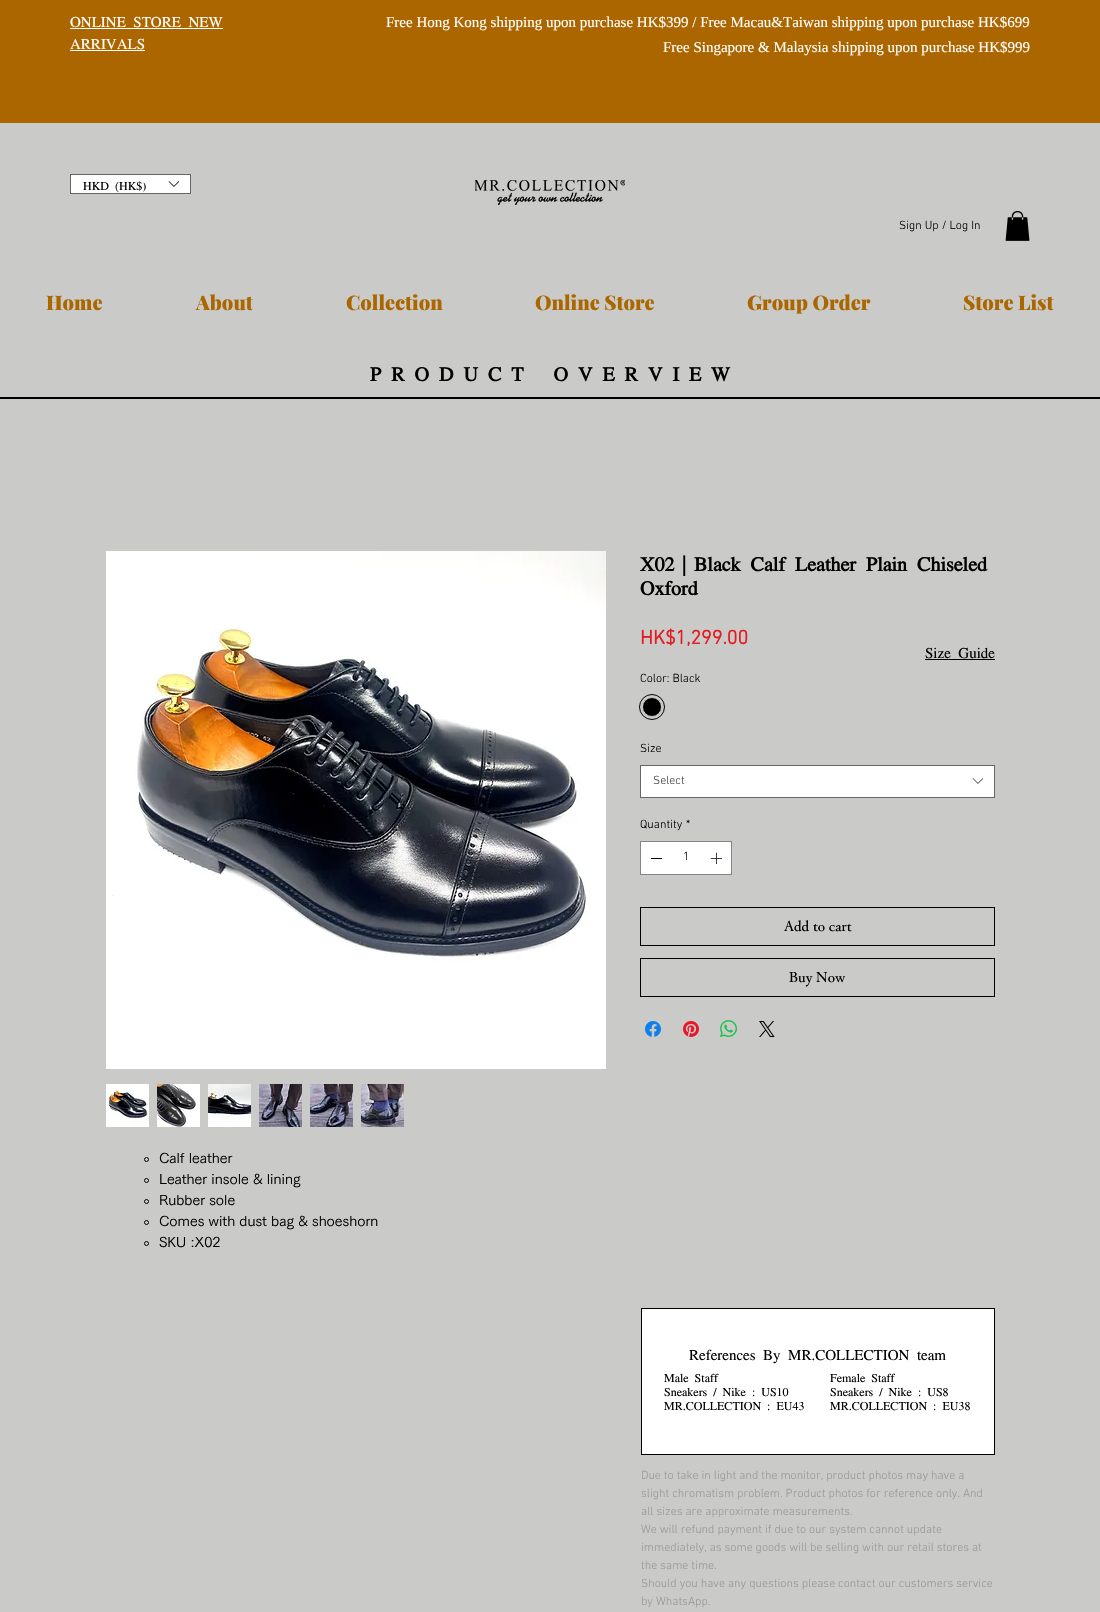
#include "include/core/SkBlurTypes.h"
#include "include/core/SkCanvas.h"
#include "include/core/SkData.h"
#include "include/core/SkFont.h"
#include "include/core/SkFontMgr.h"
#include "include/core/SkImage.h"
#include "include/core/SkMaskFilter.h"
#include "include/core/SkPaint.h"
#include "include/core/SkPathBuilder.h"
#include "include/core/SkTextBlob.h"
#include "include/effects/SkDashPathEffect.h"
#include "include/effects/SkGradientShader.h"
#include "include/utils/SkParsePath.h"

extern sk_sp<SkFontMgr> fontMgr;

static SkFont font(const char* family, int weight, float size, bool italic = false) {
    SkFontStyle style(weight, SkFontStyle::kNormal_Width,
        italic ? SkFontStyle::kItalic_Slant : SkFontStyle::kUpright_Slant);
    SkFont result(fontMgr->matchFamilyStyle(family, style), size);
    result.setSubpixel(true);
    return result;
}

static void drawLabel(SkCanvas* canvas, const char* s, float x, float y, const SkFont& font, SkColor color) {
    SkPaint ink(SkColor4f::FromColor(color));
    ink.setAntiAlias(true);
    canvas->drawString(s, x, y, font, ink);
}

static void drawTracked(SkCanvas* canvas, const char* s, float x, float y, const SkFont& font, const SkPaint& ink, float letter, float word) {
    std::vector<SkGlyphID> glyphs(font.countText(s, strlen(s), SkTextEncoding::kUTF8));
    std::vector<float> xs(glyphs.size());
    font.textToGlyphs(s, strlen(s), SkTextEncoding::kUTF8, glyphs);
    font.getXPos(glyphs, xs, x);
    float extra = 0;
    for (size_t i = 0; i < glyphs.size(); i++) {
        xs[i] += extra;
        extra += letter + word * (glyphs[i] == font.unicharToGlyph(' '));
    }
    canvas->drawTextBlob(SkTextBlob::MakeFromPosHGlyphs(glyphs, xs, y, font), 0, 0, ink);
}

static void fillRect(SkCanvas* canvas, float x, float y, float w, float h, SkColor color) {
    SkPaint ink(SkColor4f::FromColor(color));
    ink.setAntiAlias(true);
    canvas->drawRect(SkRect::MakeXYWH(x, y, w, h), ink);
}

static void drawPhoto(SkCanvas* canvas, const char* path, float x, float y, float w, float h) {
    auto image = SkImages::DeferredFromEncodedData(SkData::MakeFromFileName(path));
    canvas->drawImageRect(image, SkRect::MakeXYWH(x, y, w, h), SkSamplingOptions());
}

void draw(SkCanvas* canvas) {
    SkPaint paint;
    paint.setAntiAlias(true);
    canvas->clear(0xFFCACBC9);
    fillRect(canvas, 0, 0, 1100, 123, 0xFFAB6600);
    SkFont font1 = font("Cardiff", 400, 15);
    drawLabel(canvas, "ONLINE STORE NEW", 70, 27, font1, 0xFFFFFFFF);
    fillRect(canvas, 70, 28, 153, 1, 0xFFFFFFFF);
    drawLabel(canvas, "ARRIVALS", 70, 49, font1, 0xFFFFFFFF);
    fillRect(canvas, 70, 50, 75, 1, 0xFFFFFFFF);
    SkFont font2 = font("Liberation Serif", 400, 15);
    drawLabel(canvas, "Free Hong Kong shipping upon purchase HK$399 / Free Macau&Taiwan shipping upon purchase HK$699", 386, 27, font2, 0xFFFFFFFF);
    drawLabel(canvas, "Free Singapore & Malaysia shipping upon purchase HK$999", 663, 52, font2, 0xFFFFFFFF);
    paint.setColor(0xFFFFFFFF);
    canvas->drawRect(SkRect::MakeXYWH(70.5f, 174.5f, 120, 19), paint);
    paint.setStroke(true);
    paint.setStrokeWidth(1);
    paint.setColor(0xFF666666);
    canvas->drawRect(SkRect::MakeXYWH(70.5f, 174.5f, 120, 19), paint);
    SkFont font3 = font("Cardiff", 400, 12);
    drawLabel(canvas, "HKD (HK$)", 83, 190, font3, 0xFF000000);
    drawPhoto(canvas, "assets/img1.png", 168, 181, 12, 6);
    drawPhoto(canvas, "assets/img2.png", 475, 180, 150, 25);
    SkFont font4 = font("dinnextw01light", 300, 12);
    drawLabel(canvas, "Sign Up / Log In", 899, 229, font4, 0xFF000000);
    drawPhoto(canvas, "assets/img3.png", 1005, 211, 25, 30);
    SkFont font5 = font("Playfair Display", 900, 20);
    drawLabel(canvas, "Home", 46, 310, font5, 0xFFAB6600);
    drawLabel(canvas, "About", 196, 310, font5, 0xFFAB6600);
    drawLabel(canvas, "Collection", 346, 310, font5, 0xFFAB6600);
    drawLabel(canvas, "Online Store", 535, 310, font5, 0xFFAB6600);
    drawLabel(canvas, "Group Order", 747, 310, font5, 0xFFAB6600);
    drawLabel(canvas, "Store List", 963, 310, font5, 0xFFAB6600);
    SkFont font6 = font("Cardiff", 700, 20);
    paint.setStroke(false);
    paint.setColor(0xFF000000);
    drawTracked(canvas, "PRODUCT OVERVIE", 370, 381, font6, paint, 10, 0);
    drawLabel(canvas, "W", 711, 381, font6, 0xFF000000);
    fillRect(canvas, 0, 397, 1100, 2, 0xFF000000);
    drawLabel(canvas, "X02", 640, 571, font6, 0xFF000000);
    SkFont font7 = font("WenQuanYi Zen Hei", 700, 20);
    drawLabel(canvas, "｜", 674, 571, font7, 0xFF000000);
    drawLabel(canvas, "Black Calf Leather Plain Chiseled", 694, 571, font6, 0xFF000000);
    drawLabel(canvas, "Oxford", 640, 595, font6, 0xFF000000);
    SkFont font8 = font("dinnextw01light", 700, 20);
    drawLabel(canvas, "HK$1,299.00", 640, 644, font8, 0xFFE21C21);
    drawLabel(canvas, "Color: Black", 640, 682, font4, 0xFF000000);
    paint.setStroke(true);
    canvas->drawCircle(652, 707, 12.5f, paint);
    paint.setStroke(false);
    canvas->drawCircle(652, 707, 9.5f, paint);
    paint.setStroke(true);
    paint.setColor(0xFFC9C9C9);
    canvas->drawCircle(652, 707, 9.5f, paint);
    drawLabel(canvas, "Size", 640, 752, font4, 0xFF000000);
    paint.setStroke(false);
    paint.setColor(0xFFFFFFFF);
    canvas->drawRect(SkRect::MakeXYWH(640.5f, 765.5f, 354, 32), paint);
    paint.setStroke(true);
    paint.setColor(0xFF666666);
    canvas->drawRect(SkRect::MakeXYWH(640.5f, 765.5f, 354, 32), paint);
    drawLabel(canvas, "Select", 653, 784, font4, 0xFF444444);
    drawPhoto(canvas, "assets/img4.png", 972, 778, 12, 6);
    drawLabel(canvas, "Quantity", 640, 828, font4, 0xFF000000);
    drawLabel(canvas, "*", 686, 828, font4, 0xFF000000);
    paint.setStroke(false);
    paint.setColor(0xFFFFFFFF);
    canvas->drawRect(SkRect::MakeXYWH(640.5f, 841.5f, 91, 33), paint);
    paint.setStroke(true);
    paint.setColor(0xFF848584);
    canvas->drawRect(SkRect::MakeXYWH(640.5f, 841.5f, 91, 33), paint);
    fillRect(canvas, 651, 858, 11, 1, 0xFF000000);
    drawLabel(canvas, "1", 683, 860, font4, 0xFF000000);
    drawPhoto(canvas, "assets/img5.png", 710, 852, 12, 12);
    paint.setColor(0xFF000000);
    canvas->drawRect(SkRect::MakeXYWH(640.5f, 907.5f, 354, 38), paint);
    SkFont font9 = font("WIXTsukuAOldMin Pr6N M", 500, 14);
    drawLabel(canvas, "Add to cart", 784, 931, font9, 0xFF000000);
    canvas->drawRect(SkRect::MakeXYWH(640.5f, 958.5f, 354, 38), paint);
    drawLabel(canvas, "Buy Now", 789, 982, font9, 0xFF000000);
    drawPhoto(canvas, "assets/img6.png", 645, 1021, 16, 16);
    drawPhoto(canvas, "assets/img7.png", 683, 1021, 16, 16);
    drawPhoto(canvas, "assets/img8.png", 720, 1020, 17, 17);
    drawPhoto(canvas, "assets/img9.png", 759, 1021, 16, 16);
    drawPhoto(canvas, "assets/img10.png", 106, 551, 500, 518);
    drawPhoto(canvas, "assets/img11.png", 106, 1084, 43, 43);
    drawPhoto(canvas, "assets/img12.png", 157, 1084, 43, 43);
    drawPhoto(canvas, "assets/img13.png", 208, 1084, 43, 43);
    drawPhoto(canvas, "assets/img14.png", 259, 1084, 43, 43);
    drawPhoto(canvas, "assets/img15.png", 310, 1084, 43, 43);
    drawPhoto(canvas, "assets/img16.png", 361, 1084, 43, 43);
    canvas->drawCircle(146.5f, 1159.5f, 2, paint);
    SkFont font10 = font("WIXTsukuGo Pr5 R", 400, 14);
    drawLabel(canvas, "Calf leather", 159, 1163, font10, 0xFF000000);
    canvas->drawCircle(146.5f, 1180.5f, 2, paint);
    drawLabel(canvas, "Leather insole & lining", 159, 1184, font10, 0xFF000000);
    canvas->drawCircle(146.5f, 1201.5f, 2, paint);
    drawLabel(canvas, "Rubber sole", 159, 1205, font10, 0xFF000000);
    canvas->drawCircle(146.5f, 1222.5f, 2, paint);
    drawLabel(canvas, "Comes with dust bag & shoeshorn", 159, 1226, font10, 0xFF000000);
    canvas->drawCircle(146.5f, 1243.5f, 2, paint);
    drawLabel(canvas, "SKU :X02", 159, 1247, font10, 0xFF000000);
    drawLabel(canvas, "Size Guide", 925, 658, font1, 0xFF000000);
    fillRect(canvas, 925, 659, 70, 1, 0xFF000000);
    paint.setStroke(false);
    paint.setColor(0xFFFFFFFF);
    canvas->drawRect(SkRect::MakeXYWH(641.5f, 1308.5f, 353, 146), paint);
    paint.setStroke(true);
    paint.setColor(0xFF000000);
    canvas->drawRect(SkRect::MakeXYWH(641.5f, 1308.5f, 353, 146), paint);
    drawLabel(canvas, "References By MR.COLLECTION team", 689, 1360, font1, 0xFF000000);
    drawLabel(canvas, "Male Staff", 664, 1382, font3, 0xFF000000);
    drawLabel(canvas, "Sneakers / Nike : US10", 664, 1396, font3, 0xFF000000);
    drawLabel(canvas, "MR.COLLECTION : EU43", 664, 1410, font3, 0xFF000000);
    drawLabel(canvas, "Female Staff", 830, 1382, font3, 0xFF000000);
    drawLabel(canvas, "Sneakers / Nike : US8", 830, 1396, font3, 0xFF000000);
    drawLabel(canvas, "MR.COLLECTION : EU38", 830, 1410, font3, 0xFF000000);
    drawLabel(canvas, "Due to take in light and the monitor, product photos may have a", 641, 1479, font4, 0xFF979897);
    drawLabel(canvas, "slight chromatism problem. Product photos for reference only. And", 641, 1497, font4, 0xFF979897);
    drawLabel(canvas, "all sizes are approximate measurements.", 641, 1515, font4, 0xFF979897);
    drawLabel(canvas, "We will refund payment if due to our system cannot update", 641, 1533, font4, 0xFF979897);
    drawLabel(canvas, "immediately, as some goods will be selling with our retail stores at", 641, 1551, font4, 0xFF979897);
    drawLabel(canvas, "the same time.", 641, 1569, font4, 0xFF979897);
    drawLabel(canvas, "Should you have any questions please contact our customers service", 641, 1587, font4, 0xFF979897);
    drawLabel(canvas, "by WhatsApp.", 641, 1605, font4, 0xFF979897);
}
